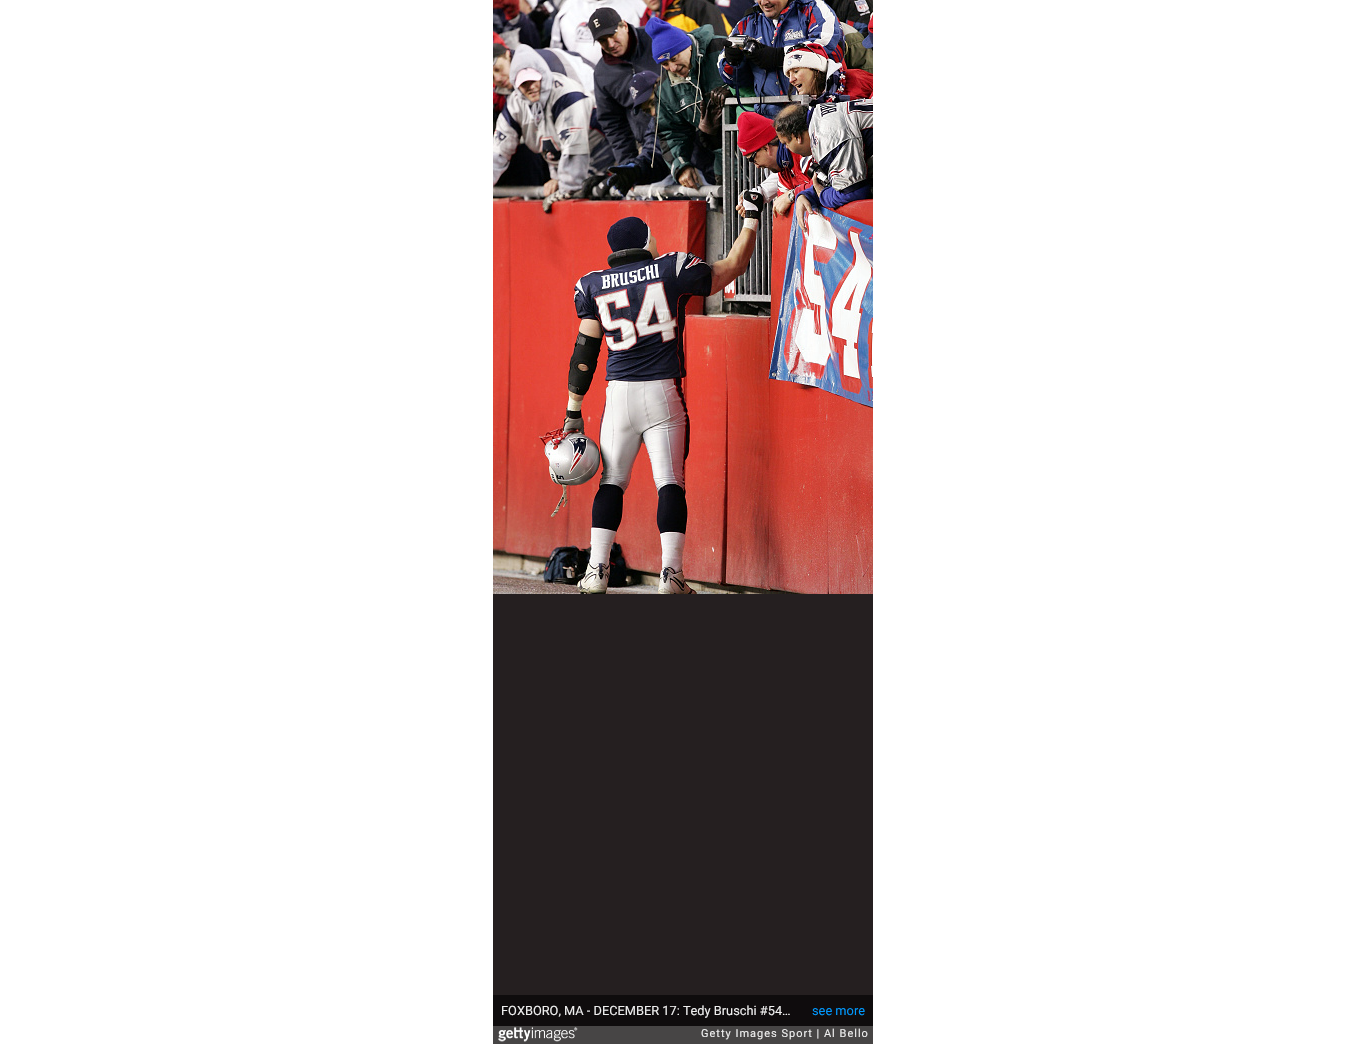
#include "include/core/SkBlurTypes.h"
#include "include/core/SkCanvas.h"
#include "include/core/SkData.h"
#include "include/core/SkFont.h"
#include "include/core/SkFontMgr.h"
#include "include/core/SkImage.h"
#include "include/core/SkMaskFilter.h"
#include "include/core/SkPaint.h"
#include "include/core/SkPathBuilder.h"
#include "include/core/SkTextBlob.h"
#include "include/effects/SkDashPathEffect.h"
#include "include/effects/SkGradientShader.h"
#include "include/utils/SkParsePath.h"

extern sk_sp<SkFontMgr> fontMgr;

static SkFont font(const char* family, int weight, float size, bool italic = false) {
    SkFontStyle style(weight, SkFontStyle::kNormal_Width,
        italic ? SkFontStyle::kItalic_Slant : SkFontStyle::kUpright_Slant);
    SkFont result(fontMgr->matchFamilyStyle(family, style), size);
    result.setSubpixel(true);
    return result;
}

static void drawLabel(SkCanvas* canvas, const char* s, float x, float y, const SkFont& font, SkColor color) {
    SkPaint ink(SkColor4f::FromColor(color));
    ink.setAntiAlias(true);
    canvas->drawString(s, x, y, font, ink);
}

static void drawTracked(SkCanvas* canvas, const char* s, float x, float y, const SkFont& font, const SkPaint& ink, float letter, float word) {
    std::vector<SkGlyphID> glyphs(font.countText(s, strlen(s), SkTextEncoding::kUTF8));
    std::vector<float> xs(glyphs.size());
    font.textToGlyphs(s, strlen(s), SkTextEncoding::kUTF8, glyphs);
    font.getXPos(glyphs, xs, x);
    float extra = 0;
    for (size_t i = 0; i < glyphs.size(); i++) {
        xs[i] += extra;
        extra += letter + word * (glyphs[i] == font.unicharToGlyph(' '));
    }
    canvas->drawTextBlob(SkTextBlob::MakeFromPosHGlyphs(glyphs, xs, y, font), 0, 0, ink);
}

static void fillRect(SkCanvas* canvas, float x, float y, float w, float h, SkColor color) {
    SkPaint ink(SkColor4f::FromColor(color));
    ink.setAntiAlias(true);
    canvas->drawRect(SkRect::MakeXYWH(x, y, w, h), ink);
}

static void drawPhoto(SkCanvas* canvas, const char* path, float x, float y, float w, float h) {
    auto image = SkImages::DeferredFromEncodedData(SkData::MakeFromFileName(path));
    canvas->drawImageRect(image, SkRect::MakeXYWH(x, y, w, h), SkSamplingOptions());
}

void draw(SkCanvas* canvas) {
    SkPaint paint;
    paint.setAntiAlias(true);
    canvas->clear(0xFFFFFFFF);
    fillRect(canvas, 493, 594, 380, 401, 0xFF251F20);
    drawPhoto(canvas, "assets/img1.png", 493, 0, 380, 594);
    fillRect(canvas, 493, 995, 380, 31, 0xFF0F0C0D);
    SkFont font1 = font("Roboto", 400, 12.8f);
    drawLabel(canvas, "FOXBORO, MA - DECEMBER 17: Tedy Bruschi #54…", 501, 1015, font1, 0xFFEEEEEE);
    drawLabel(canvas, "see more", 812, 1015, font1, 0xFF0099FF);
    fillRect(canvas, 493, 1026, 380, 18, 0xFF474545);
    drawPhoto(canvas, "assets/img2.png", 498, 1027, 80, 15);
    SkFont font2 = font("Roboto", 400, 11);
    paint.setColor(0xFFEEEEEE);
    drawTracked(canvas, "Getty Images Sport | Al Bello", 701, 1037, font2, paint, 1, 0);
}
